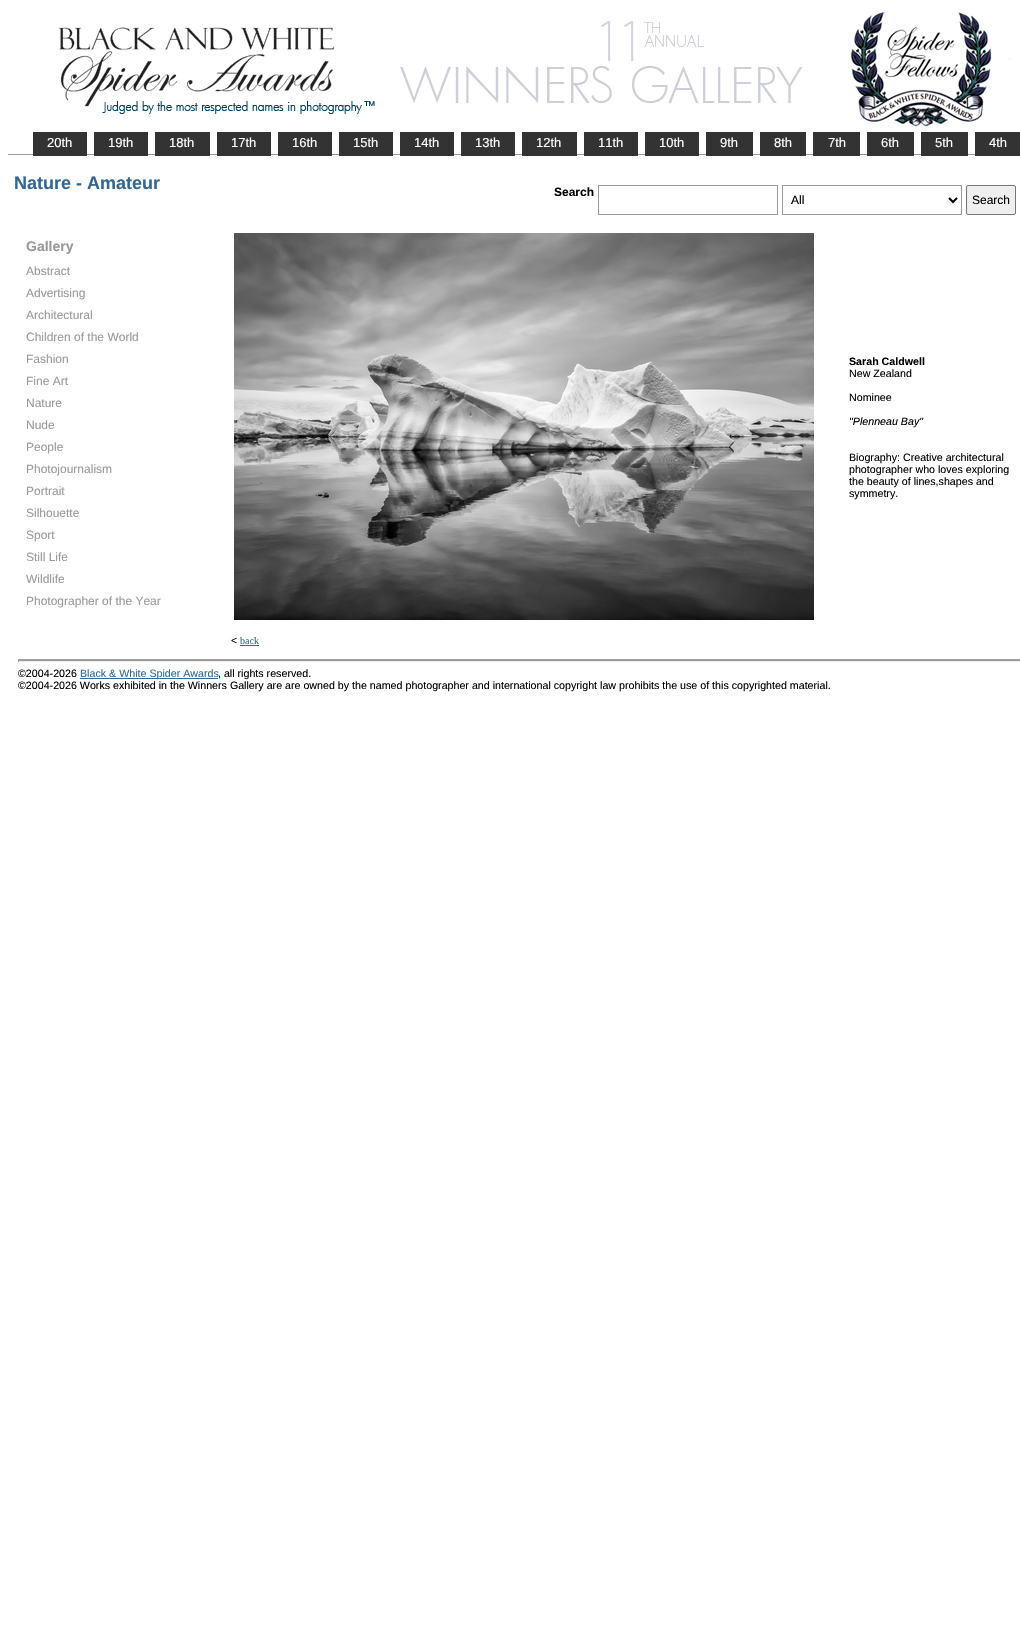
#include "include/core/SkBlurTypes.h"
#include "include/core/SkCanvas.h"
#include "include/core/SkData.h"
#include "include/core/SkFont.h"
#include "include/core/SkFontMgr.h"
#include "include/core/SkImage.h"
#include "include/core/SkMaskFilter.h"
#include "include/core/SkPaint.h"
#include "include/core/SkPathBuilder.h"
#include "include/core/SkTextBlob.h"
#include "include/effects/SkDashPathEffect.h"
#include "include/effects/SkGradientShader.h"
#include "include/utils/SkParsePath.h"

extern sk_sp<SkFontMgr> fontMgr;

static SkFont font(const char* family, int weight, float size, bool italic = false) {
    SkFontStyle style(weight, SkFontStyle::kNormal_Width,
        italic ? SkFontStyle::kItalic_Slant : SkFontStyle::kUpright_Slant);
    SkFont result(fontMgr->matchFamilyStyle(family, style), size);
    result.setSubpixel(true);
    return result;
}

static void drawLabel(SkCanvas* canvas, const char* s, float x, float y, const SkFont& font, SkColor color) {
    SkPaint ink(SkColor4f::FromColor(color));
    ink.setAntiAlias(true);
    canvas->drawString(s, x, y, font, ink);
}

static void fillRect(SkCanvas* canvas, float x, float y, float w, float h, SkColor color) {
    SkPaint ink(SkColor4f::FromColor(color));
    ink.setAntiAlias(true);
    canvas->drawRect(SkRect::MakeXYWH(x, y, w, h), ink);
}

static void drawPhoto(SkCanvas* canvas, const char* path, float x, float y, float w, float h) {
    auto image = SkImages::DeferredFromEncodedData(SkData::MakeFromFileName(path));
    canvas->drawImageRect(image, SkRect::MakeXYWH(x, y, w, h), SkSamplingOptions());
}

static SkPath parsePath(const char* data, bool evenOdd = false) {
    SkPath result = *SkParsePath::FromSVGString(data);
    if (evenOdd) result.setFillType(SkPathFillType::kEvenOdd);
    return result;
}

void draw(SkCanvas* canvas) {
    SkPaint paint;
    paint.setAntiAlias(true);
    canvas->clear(0xFFFFFFFF);
    drawPhoto(canvas, "assets/img1.png", 58, 12, 953, 118);
    fillRect(canvas, 8, 154, 967, 1, 0xFF999999);
    fillRect(canvas, 33, 132, 54, 24, 0xFF333333);
    SkFont font1 = font("Liberation Sans", 400, 13);
    drawLabel(canvas, "20th", 47, 147, font1, 0xFFFFFFFF);
    fillRect(canvas, 94, 132, 54, 24, 0xFF333333);
    drawLabel(canvas, "19th", 108, 147, font1, 0xFFFFFFFF);
    fillRect(canvas, 155, 132, 55, 24, 0xFF333333);
    drawLabel(canvas, "18th", 169, 147, font1, 0xFFFFFFFF);
    fillRect(canvas, 217, 132, 54, 24, 0xFF333333);
    drawLabel(canvas, "17th", 231, 147, font1, 0xFFFFFFFF);
    fillRect(canvas, 278, 132, 54, 24, 0xFF333333);
    drawLabel(canvas, "16th", 292, 147, font1, 0xFFFFFFFF);
    fillRect(canvas, 339, 132, 54, 24, 0xFF333333);
    drawLabel(canvas, "15th", 353, 147, font1, 0xFFFFFFFF);
    fillRect(canvas, 400, 132, 54, 24, 0xFF333333);
    drawLabel(canvas, "14th", 414, 147, font1, 0xFFFFFFFF);
    fillRect(canvas, 461, 132, 54, 24, 0xFF333333);
    drawLabel(canvas, "13th", 475, 147, font1, 0xFFFFFFFF);
    fillRect(canvas, 522, 132, 55, 24, 0xFF333333);
    drawLabel(canvas, "12th", 536, 147, font1, 0xFFFFFFFF);
    fillRect(canvas, 584, 132, 54, 24, 0xFF333333);
    drawLabel(canvas, "11th", 598, 147, font1, 0xFFFFFFFF);
    fillRect(canvas, 645, 132, 54, 24, 0xFF333333);
    drawLabel(canvas, "10th", 659, 147, font1, 0xFFFFFFFF);
    fillRect(canvas, 706, 132, 47, 24, 0xFF333333);
    drawLabel(canvas, "9th", 720, 147, font1, 0xFFFFFFFF);
    fillRect(canvas, 760, 132, 46, 24, 0xFF333333);
    drawLabel(canvas, "8th", 774, 147, font1, 0xFFFFFFFF);
    fillRect(canvas, 813, 132, 47, 24, 0xFF333333);
    drawLabel(canvas, "7th", 828, 147, font1, 0xFFFFFFFF);
    fillRect(canvas, 867, 132, 47, 24, 0xFF333333);
    drawLabel(canvas, "6th", 881, 147, font1, 0xFFFFFFFF);
    fillRect(canvas, 921, 132, 47, 24, 0xFF333333);
    drawLabel(canvas, "5th", 935, 147, font1, 0xFFFFFFFF);
    fillRect(canvas, 975, 132, 45, 24, 0xFF333333);
    drawLabel(canvas, "4th", 989, 147, font1, 0xFFFFFFFF);
    SkFont font2 = font("Liberation Sans", 700, 18);
    drawLabel(canvas, "Nature - Amateur", 14, 189, font2, 0xFF336699);
    SkFont font3 = font("Liberation Sans", 700, 12);
    drawLabel(canvas, "Search", 554, 196, font3, 0xFF000000);
    paint.setStroke(true);
    paint.setStrokeWidth(1);
    paint.setColor(0xFF999999);
    canvas->drawRect(SkRect::MakeXYWH(598.5f, 185.5f, 179, 29), paint);
    canvas->drawRect(SkRect::MakeXYWH(782.5f, 185.5f, 179, 29), paint);
    paint.setStrokeWidth(2);
    paint.setColor(0xFF000000);
    canvas->drawPath(parsePath("M949 198L953 202L957 198"), paint);
    SkFont font4 = font("Liberation Sans", 400, 12);
    drawLabel(canvas, "All", 791, 204, font4, 0xFF000000);
    paint.setStroke(false);
    paint.setColor(0xFFEFEFEF);
    canvas->drawRoundRect(SkRect::MakeXYWH(966.5f, 185.5f, 49, 29), 1.5f, 1.5f, paint);
    paint.setStroke(true);
    paint.setStrokeWidth(1);
    paint.setColor(0xFF767676);
    canvas->drawRoundRect(SkRect::MakeXYWH(966.5f, 185.5f, 49, 29), 1.5f, 1.5f, paint);
    drawLabel(canvas, "Search", 972, 204, font4, 0xFF000000);
    SkFont font5 = font("Liberation Sans", 700, 14);
    drawLabel(canvas, "Gallery", 26, 251, font5, 0xFF999999);
    drawLabel(canvas, "Abstract", 26, 275, font4, 0xFF999999);
    drawLabel(canvas, "Advertising", 26, 297, font4, 0xFF999999);
    drawLabel(canvas, "Architectural", 26, 319, font4, 0xFF999999);
    drawLabel(canvas, "Children of the World", 26, 341, font4, 0xFF999999);
    drawLabel(canvas, "Fashion", 26, 363, font4, 0xFF999999);
    drawLabel(canvas, "Fine Art", 26, 385, font4, 0xFF999999);
    drawLabel(canvas, "Nature", 26, 407, font4, 0xFF999999);
    drawLabel(canvas, "Nude", 26, 429, font4, 0xFF999999);
    drawLabel(canvas, "People", 26, 451, font4, 0xFF999999);
    drawLabel(canvas, "Photojournalism", 26, 473, font4, 0xFF999999);
    drawLabel(canvas, "Portrait", 26, 495, font4, 0xFF999999);
    drawLabel(canvas, "Silhouette", 26, 517, font4, 0xFF999999);
    drawLabel(canvas, "Sport", 26, 539, font4, 0xFF999999);
    drawLabel(canvas, "Still Life", 26, 561, font4, 0xFF999999);
    drawLabel(canvas, "Wildlife", 26, 583, font4, 0xFF999999);
    drawLabel(canvas, "Photographer of the Year", 26, 605, font4, 0xFF999999);
    drawPhoto(canvas, "assets/img2.png", 234, 233, 580, 387);
    SkFont font6 = font("Liberation Sans", 700, 10.67f);
    drawLabel(canvas, "Sarah Caldwell", 849, 365, font6, 0xFF000000);
    SkFont font7 = font("Liberation Sans", 400, 10.67f);
    drawLabel(canvas, "New Zealand", 849, 377, font7, 0xFF000000);
    drawLabel(canvas, "Nominee", 849, 401, font7, 0xFF000000);
    SkFont font8 = font("Liberation Sans", 400, 10.67f, true);
    drawLabel(canvas, "\"Plenneau Bay\"", 849, 425, font8, 0xFF000000);
    drawLabel(canvas, "Biography: Creative architectural", 849, 461, font7, 0xFF000000);
    drawLabel(canvas, "photographer who loves exploring", 849, 473, font7, 0xFF000000);
    drawLabel(canvas, "the beauty of lines,shapes and", 849, 485, font7, 0xFF000000);
    drawLabel(canvas, "symmetry.", 849, 497, font7, 0xFF000000);
    drawLabel(canvas, "<", 231, 644, font7, 0xFF000000);
    SkFont font9 = font("Liberation Serif", 400, 10);
    drawLabel(canvas, "back", 240, 644, font9, 0xFF336699);
    fillRect(canvas, 240, 645, 19, 1, 0xFF336699);
    fillRect(canvas, 18, 660, 1002, 1, 0xFF999999);
    fillRect(canvas, 18, 659, 1002, 1, 0xFF9F9F9F);
    fillRect(canvas, 18, 661, 1002, 1, 0xFFEEEEEE);
    fillRect(canvas, 18, 659, 1, 3, 0xFF9F9F9F);
    drawLabel(canvas, "©2004-2026", 18, 677, font7, 0xFF000000);
    fillRect(canvas, 80, 678, 138, 1, 0xFF336699);
    drawLabel(canvas, "Black & White Spider Awards", 80, 677, font7, 0xFF336699);
    drawLabel(canvas, ", all rights reserved.", 218, 677, font7, 0xFF000000);
    drawLabel(canvas, "©2004-2026 Works exhibited in the Winners Gallery are are owned by the named photographer and international copyright law prohibits the use of this copyrighted material.", 18, 689, font7, 0xFF000000);
}
